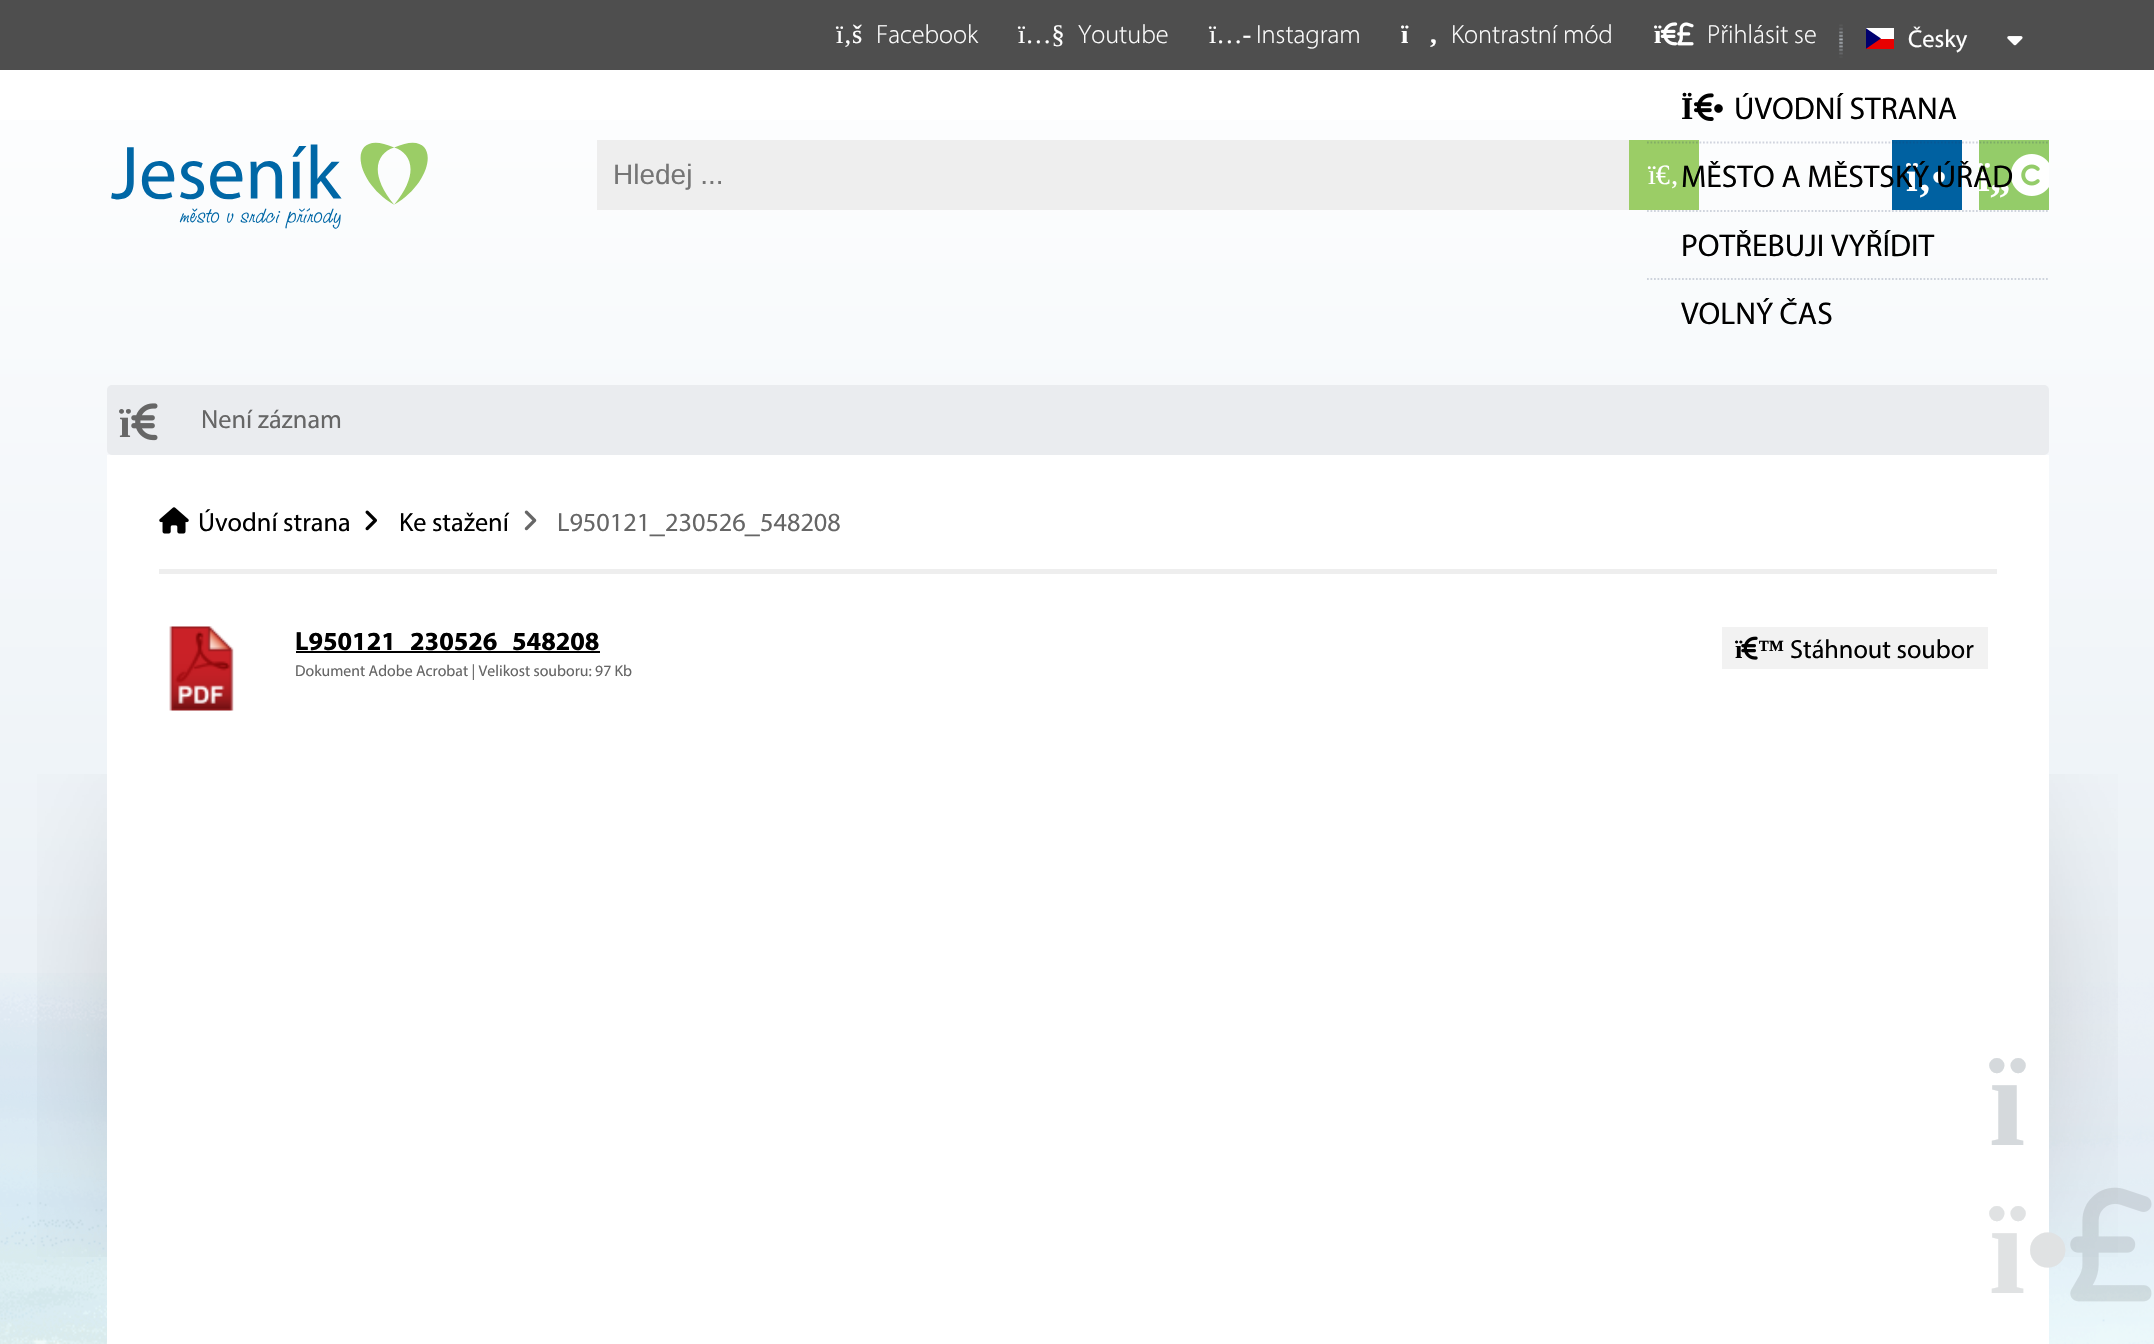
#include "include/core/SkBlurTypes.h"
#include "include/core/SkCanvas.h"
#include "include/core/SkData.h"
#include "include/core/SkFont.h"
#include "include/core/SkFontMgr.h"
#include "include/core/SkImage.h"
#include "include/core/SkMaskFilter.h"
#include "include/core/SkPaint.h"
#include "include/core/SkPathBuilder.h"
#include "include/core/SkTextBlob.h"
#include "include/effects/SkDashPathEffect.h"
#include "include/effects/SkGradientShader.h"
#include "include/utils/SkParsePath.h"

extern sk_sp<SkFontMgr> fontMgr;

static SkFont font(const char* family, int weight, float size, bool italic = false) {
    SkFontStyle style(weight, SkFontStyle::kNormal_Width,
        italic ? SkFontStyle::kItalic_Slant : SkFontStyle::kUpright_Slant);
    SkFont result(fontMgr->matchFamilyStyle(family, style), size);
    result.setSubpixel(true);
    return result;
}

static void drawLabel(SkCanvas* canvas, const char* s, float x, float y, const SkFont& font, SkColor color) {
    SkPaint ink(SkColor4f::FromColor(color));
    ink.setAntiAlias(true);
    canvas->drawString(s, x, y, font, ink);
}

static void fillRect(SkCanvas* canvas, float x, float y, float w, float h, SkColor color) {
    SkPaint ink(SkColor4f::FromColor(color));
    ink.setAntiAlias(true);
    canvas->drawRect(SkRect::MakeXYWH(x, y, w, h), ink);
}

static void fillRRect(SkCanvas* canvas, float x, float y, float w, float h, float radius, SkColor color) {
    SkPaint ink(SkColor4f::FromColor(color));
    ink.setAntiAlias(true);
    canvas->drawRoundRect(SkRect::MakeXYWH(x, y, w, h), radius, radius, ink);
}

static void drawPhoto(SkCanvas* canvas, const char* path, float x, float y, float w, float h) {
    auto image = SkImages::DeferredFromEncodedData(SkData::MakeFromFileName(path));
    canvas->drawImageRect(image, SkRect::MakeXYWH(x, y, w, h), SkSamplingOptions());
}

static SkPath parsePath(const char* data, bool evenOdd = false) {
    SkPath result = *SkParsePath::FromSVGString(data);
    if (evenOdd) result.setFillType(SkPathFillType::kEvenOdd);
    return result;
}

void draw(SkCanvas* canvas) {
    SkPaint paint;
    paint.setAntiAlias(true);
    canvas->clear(0xFFFFFFFF);
    {
        const SkColor colors[] = {0xFFFFFFFF, 0xFFC9D9E7};
        const float stops[] = {0, 1};
        const SkPoint ends[] = {{1077, 0}, {1077, 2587}};
        paint.setShader(SkGradientShader::MakeLinear(ends, colors, stops, 2, SkTileMode::kClamp));
        paint.setAlpha(255);
    }
    canvas->drawRect(SkRect::MakeXYWH(0, 120, 2154, 1224), paint);
    drawPhoto(canvas, "assets/img1.png", 0, 973, 2154, 371);
    fillRect(canvas, 0, 0, 2154, 70, 0xFF4E4E4E);
    SkFont font1 = font("Liberation Serif", 400, 26.25f);
    drawLabel(canvas, "ï‚š", 836, 43, font1, 0xFFFFFFFF);
    SkFont font2 = font("Myriad", 300, 26.25f);
    drawLabel(canvas, "Facebook", 876, 43, font2, 0xFFFFFFFF);
    drawLabel(canvas, "ï…§", 1018, 43, font1, 0xFFFFFFFF);
    drawLabel(canvas, "Youtube", 1078, 43, font2, 0xFFFFFFFF);
    drawLabel(canvas, "ï…-", 1209, 43, font1, 0xFFFFFFFF);
    drawLabel(canvas, "Instagram", 1256, 43, font2, 0xFFFFFFFF);
    SkFont font3 = font("Liberation Serif", 700, 26.25f);
    drawLabel(canvas, "ï", 1401, 43, font3, 0xFFFFFFFF);
    drawLabel(canvas, "‚", 1429, 43, font3, 0xFFFFFFFF);
    drawLabel(canvas, "Kontrastní mód", 1451, 43, font2, 0xFFFFFFFF);
    drawPhoto(canvas, "assets/img2.png", 1660, 22, 34, 24);
    drawLabel(canvas, "ï", 1654, 43, font3, 0xFFFFFFFF);
    drawLabel(canvas, "Přihlásit se", 1707, 43, font2, 0xFFFFFFFF);
    drawPhoto(canvas, "assets/img3.png", 1839, 24, 4, 34);
    fillRect(canvas, 1866, 39, 28, 10, 0xFFE80000);
    fillRect(canvas, 1866, 28, 28, 11, 0xFFFFFFFF);
    canvas->save();
    canvas->clipRect(SkRect::MakeXYWH(1866, 28, 28, 21));
    paint.setShader(nullptr);
    paint.setColor(0xFF00006F);
    canvas->drawPath(parsePath("M1865.5 28L1881 38.5L1865.5 49Z", true), paint);
    canvas->restore();
    SkFont font4 = font("Myriad", 400, 24.5f);
    drawLabel(canvas, "Česky", 1908, 47, font4, 0xFFFFFFFF);
    drawPhoto(canvas, "assets/img4.png", 2007, 36, 16, 10);
    drawPhoto(canvas, "assets/img5.png", 111, 142, 317, 87);
    fillRect(canvas, 1629, 140, 70, 70, 0xFF9BCD66);
    fillRect(canvas, 1892, 140, 70, 70, 0xFF0061A1);
    fillRect(canvas, 1979, 140, 70, 70, 0xFF94CC69);
    paint.setStroke(true);
    paint.setStrokeWidth(1.8f);
    paint.setColor(0x3321335E);
    paint.setPathEffect(SkDashPathEffect::Make({{1.75f, 1.75f}}, 0));
    canvas->drawPath(parsePath("M1647 142.5H2049"), paint);
    paint.setPathEffect(nullptr);
    SkFont font5 = font("Liberation Serif", 700, 31.5f);
    drawLabel(canvas, "Ï", 1681, 119, font5, 0xFF000000);
    drawPhoto(canvas, "assets/img6.png", 1694, 93, 20, 28);
    drawLabel(canvas, "•", 1713, 119, font5, 0xFF000000);
    SkFont font6 = font("Myriad", 400, 31.5f);
    drawLabel(canvas, "ÚVODNÍ STRANA", 1734, 119, font6, 0xFF000000);
    paint.setColor(0xFFCFD4DD);
    paint.setPathEffect(SkDashPathEffect::Make({{1.75f, 1.75f}}, 0));
    canvas->drawPath(parsePath("M1647 211H2049"), paint);
    paint.setPathEffect(nullptr);
    SkFont font7 = font("Liberation Serif", 700, 42);
    drawLabel(canvas, "ï‚•", 1906, 191, font7, 0xFFFFFFFF);
    drawLabel(canvas, "ï„", 1978, 191, font7, 0xFFFFFFFF);
    drawPhoto(canvas, "assets/img7.png", 2010, 154, 39, 42);
    drawLabel(canvas, "MĚSTO A MĚSTSKÝ ÚŘAD", 1681, 187, font6, 0xFF000000);
    paint.setColor(0xFFCED3DC);
    paint.setPathEffect(SkDashPathEffect::Make({{1.75f, 1.75f}}, 0));
    canvas->drawPath(parsePath("M1647 279H2049"), paint);
    paint.setPathEffect(nullptr);
    drawLabel(canvas, "POTŘEBUJI VYŘÍDIT", 1681, 256, font6, 0xFF000000);
    drawLabel(canvas, "VOLNÝ ČAS", 1681, 324, font6, 0xFF000000);
    fillRect(canvas, 597, 140, 1032, 70, 0xFFEEEEEE);
    SkFont font8 = font("Liberation Sans", 400, 28);
    drawLabel(canvas, "Hledej ...", 613, 184, font8, 0xFF757575);
    SkFont font9 = font("Liberation Serif", 400, 28);
    drawLabel(canvas, "ï€‚", 1648, 184, font9, 0xFFFFFFFF);
    fillRRect(canvas, 107, 385, 1942, 70, 5, 0xFFEAECEF);
    drawLabel(canvas, "ï", 119, 437, font7, 0xFF666666);
    drawPhoto(canvas, "assets/img8.png", 131, 403, 27, 38);
    SkFont font10 = font("Myriad", 400, 26.25f);
    drawLabel(canvas, "Není záznam", 201, 428, font10, 0xFF666666);
    drawPhoto(canvas, "assets/img14.png", 37, 774, 2081, 483);
    fillRect(canvas, 107, 455, 1942, 889, 0xFFFFFFFF);
    fillRect(canvas, 159, 569, 1838, 5, 0xFFEEEEEE);
    drawPhoto(canvas, "assets/img9.png", 159, 507, 30, 27);
    drawLabel(canvas, "Úvodní strana", 198, 531, font10, 0xFF000000);
    drawPhoto(canvas, "assets/img10.png", 365, 510, 12, 21);
    drawLabel(canvas, "Ke stažení", 399, 531, font10, 0xFF000000);
    drawPhoto(canvas, "assets/img11.png", 524, 510, 13, 21);
    drawLabel(canvas, "L950121", 557, 531, font10, 0xFF666666);
    drawLabel(canvas, "230526", 665, 531, font10, 0xFF666666);
    drawLabel(canvas, "548208", 760, 531, font10, 0xFF666666);
    SkFont font11 = font("Liberation Sans", 400, 26.25f);
    drawLabel(canvas, "_", 650, 531, font11, 0xFF666666);
    drawLabel(canvas, "_", 745, 531, font11, 0xFF666666);
    drawPhoto(canvas, "assets/img12.png", 169, 626, 65, 85);
    SkFont font12 = font("Myriad", 700, 26.25f);
    drawLabel(canvas, "L950121", 295, 650, font12, 0xFF000000);
    fillRect(canvas, 296, 651, 304, 2, 0xFF000000);
    drawLabel(canvas, "230526", 410, 650, font12, 0xFF000000);
    drawLabel(canvas, "548208", 512, 650, font12, 0xFF000000);
    fillRect(canvas, 1722, 627, 266, 42, 0xFFF2F2F2);
    drawPhoto(canvas, "assets/img13.png", 1741, 636, 17, 24);
    drawLabel(canvas, "ï", 1735, 658, font3, 0xFF000000);
    drawLabel(canvas, "™", 1758, 658, font3, 0xFF000000);
    drawLabel(canvas, "Stáhnout soubor", 1790, 658, font10, 0xFF000000);
    SkFont font13 = font("Myriad", 400, 15.75f);
    drawLabel(canvas, "Dokument Adobe Acrobat | Velikost souboru: 97 Kb", 295, 676, font13, 0xFF666666);
    SkFont font14 = font("Liberation Serif", 700, 130);
    drawLabel(canvas, "ï", 1989, 1145, font14, 0xFFD5D9DC);
    drawLabel(canvas, "ï•", 1989, 1293, font14, 0xFFE0E2E3);
    drawPhoto(canvas, "assets/img15.png", 2070, 1187, 82, 115);
}
